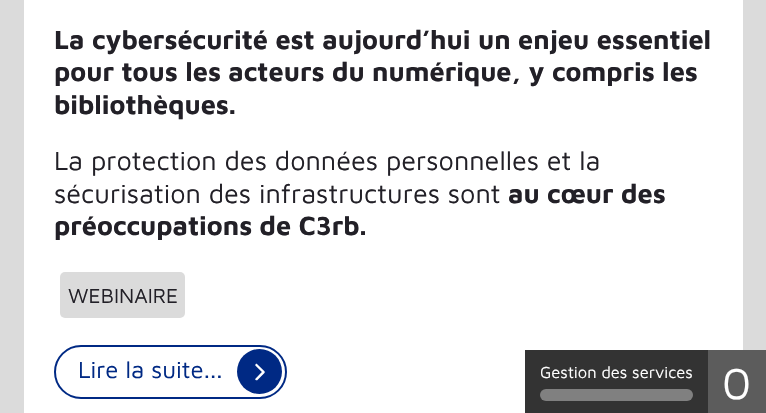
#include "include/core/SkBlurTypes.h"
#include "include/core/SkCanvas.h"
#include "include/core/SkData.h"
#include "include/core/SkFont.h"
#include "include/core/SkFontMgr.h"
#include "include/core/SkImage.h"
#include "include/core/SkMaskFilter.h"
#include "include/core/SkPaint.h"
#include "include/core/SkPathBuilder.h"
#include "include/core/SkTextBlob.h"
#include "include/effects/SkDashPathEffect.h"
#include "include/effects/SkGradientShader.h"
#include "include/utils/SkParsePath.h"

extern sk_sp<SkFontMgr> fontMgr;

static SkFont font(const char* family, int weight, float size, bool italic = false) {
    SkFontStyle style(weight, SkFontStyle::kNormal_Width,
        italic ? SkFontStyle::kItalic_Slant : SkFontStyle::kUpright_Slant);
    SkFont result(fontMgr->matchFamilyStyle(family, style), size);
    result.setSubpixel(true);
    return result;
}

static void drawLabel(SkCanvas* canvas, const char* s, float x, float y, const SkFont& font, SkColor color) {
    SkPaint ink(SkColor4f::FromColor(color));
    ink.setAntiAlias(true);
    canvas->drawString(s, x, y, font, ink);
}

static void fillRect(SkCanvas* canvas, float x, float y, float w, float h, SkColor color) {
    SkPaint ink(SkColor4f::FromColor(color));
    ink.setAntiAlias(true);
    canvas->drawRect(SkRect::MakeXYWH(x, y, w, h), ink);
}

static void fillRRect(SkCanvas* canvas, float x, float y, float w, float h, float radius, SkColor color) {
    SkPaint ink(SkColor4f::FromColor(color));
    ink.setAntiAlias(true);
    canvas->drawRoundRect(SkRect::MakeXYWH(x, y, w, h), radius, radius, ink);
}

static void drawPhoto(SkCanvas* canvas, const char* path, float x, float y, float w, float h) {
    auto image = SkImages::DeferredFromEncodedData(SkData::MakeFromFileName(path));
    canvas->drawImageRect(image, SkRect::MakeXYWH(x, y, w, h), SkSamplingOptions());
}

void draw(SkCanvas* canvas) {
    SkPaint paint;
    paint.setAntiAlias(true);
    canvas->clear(0xFFDBDBDB);
    fillRect(canvas, 24, 0, 719, 413, 0xFFFFFFFF);
    SkFont font1 = font("Maven Pro", 700, 27);
    drawLabel(canvas, "La cybersécurité est aujourd’hui un enjeu essentiel", 54, 49, font1, 0xFF222027);
    drawLabel(canvas, "pour tous les acteurs du numérique, y compris les", 54, 81, font1, 0xFF222027);
    drawLabel(canvas, "bibliothèques.", 54, 114, font1, 0xFF222027);
    SkFont font2 = font("Maven Pro", 400, 27);
    drawLabel(canvas, "La protection des données personnelles et la", 54, 170, font2, 0xFF222027);
    drawLabel(canvas, "sécurisation des infrastructures sont", 54, 203, font2, 0xFF222027);
    drawLabel(canvas, "au cœur des", 508, 203, font1, 0xFF222027);
    drawLabel(canvas, "préoccupations de C3rb.", 54, 235, font1, 0xFF222027);
    fillRRect(canvas, 60, 272, 125, 46, 5, 0xFFDBDBDB);
    SkFont font3 = font("Maven Pro", 400, 21);
    drawLabel(canvas, "WEBINAIRE", 68, 303, font3, 0xFF222027);
    paint.setStroke(true);
    paint.setStrokeWidth(2);
    paint.setColor(0xFF002984);
    canvas->drawRoundRect(SkRect::MakeXYWH(55, 346, 231, 52), 26, 26, paint);
    SkFont font4 = font("Maven Pro", 400, 24);
    drawLabel(canvas, "Lire la suite...", 78, 378, font4, 0xFF002984);
    drawPhoto(canvas, "assets/img1.png", 237, 349, 45, 45);
    fillRect(canvas, 525, 350, 183, 63, 0xFF333333);
    SkFont font5 = font("Maven Pro", 400, 16.5f);
    drawLabel(canvas, "Gestion des services", 540, 378, font5, 0xFFFFFFFF);
    fillRRect(canvas, 540, 389, 153, 12, 6, 0xFF808080);
    fillRect(canvas, 708, 350, 58, 63, 0xFF5C5C5C);
    SkFont font6 = font("Maven Pro", 400, 45);
    drawLabel(canvas, "0", 722, 399, font6, 0xFFFFFFFF);
}
